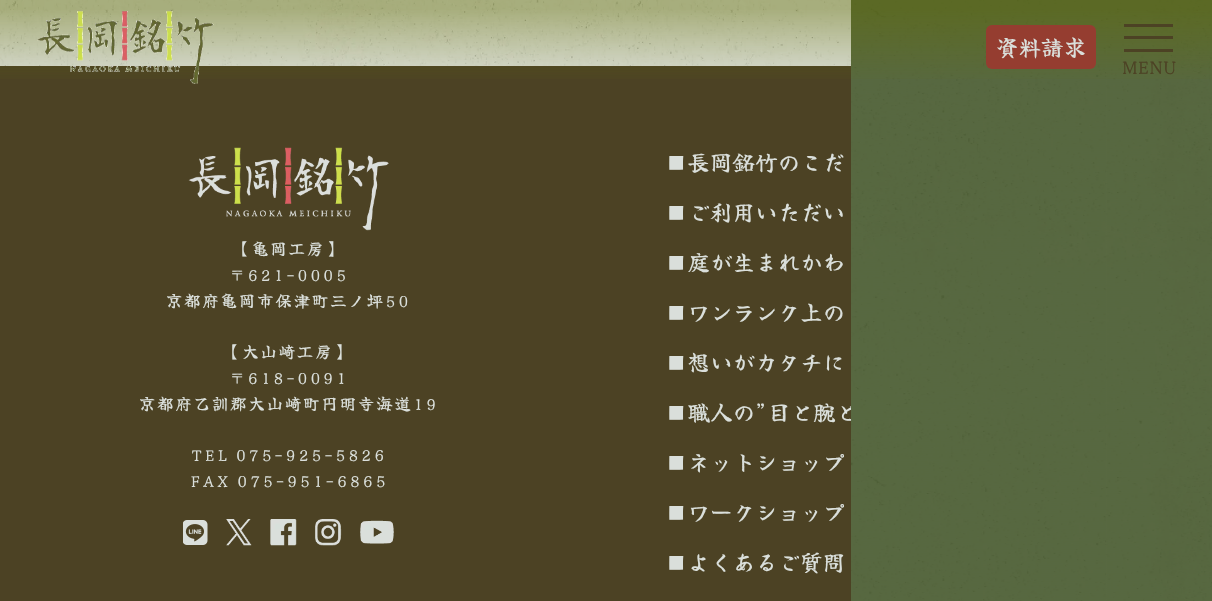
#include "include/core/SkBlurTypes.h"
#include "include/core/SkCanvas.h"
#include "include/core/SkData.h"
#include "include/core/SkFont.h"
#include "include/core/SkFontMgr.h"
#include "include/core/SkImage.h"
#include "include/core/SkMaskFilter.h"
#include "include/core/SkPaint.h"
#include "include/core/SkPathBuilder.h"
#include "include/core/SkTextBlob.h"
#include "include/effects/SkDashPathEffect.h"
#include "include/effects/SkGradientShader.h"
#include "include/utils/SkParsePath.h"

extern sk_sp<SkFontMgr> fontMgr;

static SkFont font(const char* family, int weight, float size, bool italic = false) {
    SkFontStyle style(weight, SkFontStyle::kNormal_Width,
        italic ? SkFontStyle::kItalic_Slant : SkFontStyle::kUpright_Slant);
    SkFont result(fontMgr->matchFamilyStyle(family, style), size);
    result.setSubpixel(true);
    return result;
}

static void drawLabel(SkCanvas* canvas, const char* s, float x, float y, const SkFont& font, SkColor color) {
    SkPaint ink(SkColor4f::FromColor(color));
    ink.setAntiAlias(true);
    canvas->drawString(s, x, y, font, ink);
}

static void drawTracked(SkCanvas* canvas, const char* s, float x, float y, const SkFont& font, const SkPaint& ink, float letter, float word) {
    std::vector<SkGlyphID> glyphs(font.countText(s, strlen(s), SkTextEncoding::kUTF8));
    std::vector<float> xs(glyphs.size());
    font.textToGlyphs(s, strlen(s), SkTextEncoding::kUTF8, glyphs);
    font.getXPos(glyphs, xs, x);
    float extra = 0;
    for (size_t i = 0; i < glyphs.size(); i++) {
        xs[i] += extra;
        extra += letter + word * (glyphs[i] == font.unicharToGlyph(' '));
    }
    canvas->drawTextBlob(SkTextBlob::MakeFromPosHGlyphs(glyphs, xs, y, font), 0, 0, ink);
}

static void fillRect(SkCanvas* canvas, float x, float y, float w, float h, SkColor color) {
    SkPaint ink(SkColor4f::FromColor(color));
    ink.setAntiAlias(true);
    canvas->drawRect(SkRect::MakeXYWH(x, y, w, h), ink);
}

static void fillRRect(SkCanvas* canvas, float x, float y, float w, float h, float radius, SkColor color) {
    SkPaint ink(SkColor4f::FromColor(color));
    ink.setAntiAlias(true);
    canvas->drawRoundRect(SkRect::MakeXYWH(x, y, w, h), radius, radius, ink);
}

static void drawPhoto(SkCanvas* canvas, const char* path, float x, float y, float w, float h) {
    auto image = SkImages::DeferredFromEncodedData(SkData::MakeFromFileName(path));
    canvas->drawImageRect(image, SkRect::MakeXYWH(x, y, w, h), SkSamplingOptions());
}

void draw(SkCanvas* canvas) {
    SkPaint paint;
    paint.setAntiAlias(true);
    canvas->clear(0xFFFFFFFF);
    drawPhoto(canvas, "assets/img1.png", 0, 0, 851, 66);
    fillRect(canvas, 0, 66, 851, 535, 0xFF4C4224);
    SkFont font1 = font("Yuji Syuku", 400, 22.5f);
    drawLabel(canvas, "■職人の”目と腕と", 665, 421, font1, 0xFFDADFDB);
    drawPhoto(canvas, "assets/img2.png", 851, 0, 361, 601);
    {
        const SkColor colors[] = {0x03687300, 0x6E606B00};
        const float stops[] = {0.1f, 0.9f};
        const SkPoint ends[] = {{313, 94}, {313, 0}};
        paint.setShader(SkGradientShader::MakeLinear(ends, colors, stops, 2, SkTileMode::kClamp));
        paint.setAlpha(255);
    }
    canvas->drawRect(SkRect::MakeXYWH(0, 0, 1212, 79), paint);
    drawPhoto(canvas, "assets/img3.png", 37, 11, 177, 73);
    fillRRect(canvas, 986, 25, 110, 44, 6, 0xFF953D30);
    drawLabel(canvas, "資料請求", 996, 56, font1, 0xFFDADFDB);
    fillRect(canvas, 1124, 24, 49, 3, 0xFF4C4224);
    fillRect(canvas, 1124, 36, 49, 3, 0xFF4C4224);
    fillRect(canvas, 1124, 49, 49, 3, 0xFF4C4224);
    SkFont font2 = font("Yuji Syuku", 400, 19);
    paint.setShader(nullptr);
    paint.setColor(0xFF4C4224);
    drawTracked(canvas, "MENU", 1121, 74, font2, paint, -1.5f, 0);
    drawPhoto(canvas, "assets/img4.png", 188, 147, 201, 84);
    SkFont font3 = font("Yuji Syuku", 400, 16.25f);
    paint.setColor(0xFFDADFDB);
    drawTracked(canvas, "【亀岡工房】", 234, 255, font3, paint, 2, 0);
    drawTracked(canvas, "〒621-0005", 229, 281, font3, paint, 2, 0);
    drawTracked(canvas, "京都府亀岡市保津町三ノ坪50", 166, 307, font3, paint, 2, 0);
    drawTracked(canvas, "【大山崎工房】", 224, 358, font3, paint, 2, 0);
    drawTracked(canvas, "〒618-0091", 229, 384, font3, paint, 2, 0);
    drawTracked(canvas, "京都府乙訓郡大山崎町円明寺海道19", 139, 410, font3, paint, 2, 0);
    drawTracked(canvas, "TEL 075-925-5826", 191, 461, font3, paint, 2, 0);
    drawTracked(canvas, "FAX 075-951-6865", 190, 487, font3, paint, 2, 0);
    drawPhoto(canvas, "assets/img5.png", 183, 520, 25, 25);
    drawPhoto(canvas, "assets/img6.png", 226, 519, 26, 27);
    drawPhoto(canvas, "assets/img7.png", 270, 519, 27, 27);
    drawPhoto(canvas, "assets/img8.png", 315, 519, 27, 27);
    drawPhoto(canvas, "assets/img9.png", 360, 520, 34, 24);
    drawLabel(canvas, "■長岡銘竹のこだ", 665, 171, font1, 0xFFDADFDB);
    drawLabel(canvas, "■ご利用いただい", 665, 221, font1, 0xFFDADFDB);
    drawLabel(canvas, "■庭が生まれかわ", 665, 271, font1, 0xFFDADFDB);
    drawLabel(canvas, "■ワンランク上の", 665, 321, font1, 0xFFDADFDB);
    drawLabel(canvas, "■想いがカタチに", 665, 371, font1, 0xFFDADFDB);
    drawLabel(canvas, "■ネットショップ", 665, 471, font1, 0xFFDADFDB);
    drawLabel(canvas, "■ワークショップ", 665, 521, font1, 0xFFDADFDB);
    drawLabel(canvas, "■よくあるご質問", 665, 571, font1, 0xFFDADFDB);
}
